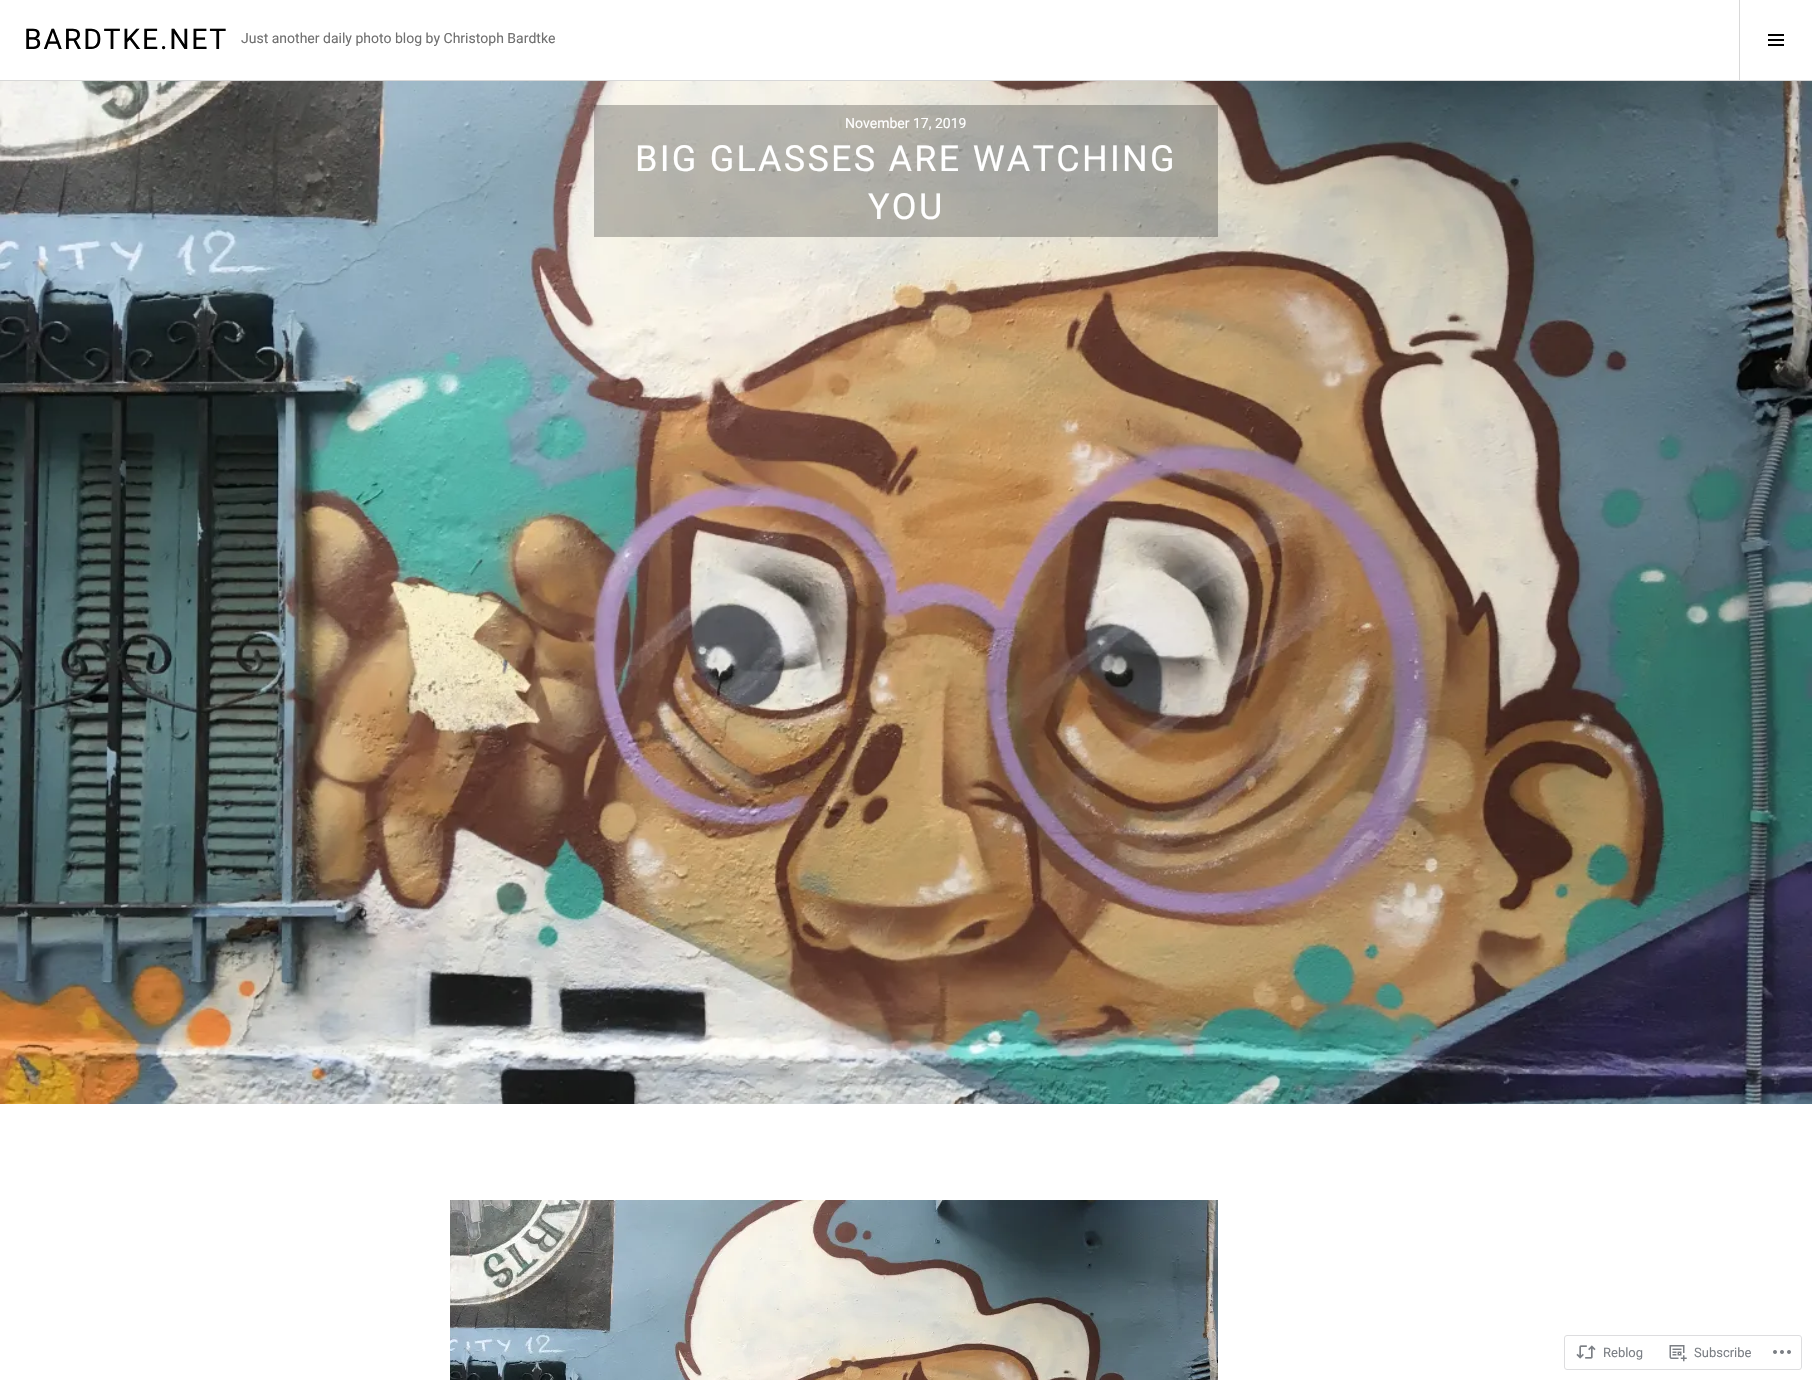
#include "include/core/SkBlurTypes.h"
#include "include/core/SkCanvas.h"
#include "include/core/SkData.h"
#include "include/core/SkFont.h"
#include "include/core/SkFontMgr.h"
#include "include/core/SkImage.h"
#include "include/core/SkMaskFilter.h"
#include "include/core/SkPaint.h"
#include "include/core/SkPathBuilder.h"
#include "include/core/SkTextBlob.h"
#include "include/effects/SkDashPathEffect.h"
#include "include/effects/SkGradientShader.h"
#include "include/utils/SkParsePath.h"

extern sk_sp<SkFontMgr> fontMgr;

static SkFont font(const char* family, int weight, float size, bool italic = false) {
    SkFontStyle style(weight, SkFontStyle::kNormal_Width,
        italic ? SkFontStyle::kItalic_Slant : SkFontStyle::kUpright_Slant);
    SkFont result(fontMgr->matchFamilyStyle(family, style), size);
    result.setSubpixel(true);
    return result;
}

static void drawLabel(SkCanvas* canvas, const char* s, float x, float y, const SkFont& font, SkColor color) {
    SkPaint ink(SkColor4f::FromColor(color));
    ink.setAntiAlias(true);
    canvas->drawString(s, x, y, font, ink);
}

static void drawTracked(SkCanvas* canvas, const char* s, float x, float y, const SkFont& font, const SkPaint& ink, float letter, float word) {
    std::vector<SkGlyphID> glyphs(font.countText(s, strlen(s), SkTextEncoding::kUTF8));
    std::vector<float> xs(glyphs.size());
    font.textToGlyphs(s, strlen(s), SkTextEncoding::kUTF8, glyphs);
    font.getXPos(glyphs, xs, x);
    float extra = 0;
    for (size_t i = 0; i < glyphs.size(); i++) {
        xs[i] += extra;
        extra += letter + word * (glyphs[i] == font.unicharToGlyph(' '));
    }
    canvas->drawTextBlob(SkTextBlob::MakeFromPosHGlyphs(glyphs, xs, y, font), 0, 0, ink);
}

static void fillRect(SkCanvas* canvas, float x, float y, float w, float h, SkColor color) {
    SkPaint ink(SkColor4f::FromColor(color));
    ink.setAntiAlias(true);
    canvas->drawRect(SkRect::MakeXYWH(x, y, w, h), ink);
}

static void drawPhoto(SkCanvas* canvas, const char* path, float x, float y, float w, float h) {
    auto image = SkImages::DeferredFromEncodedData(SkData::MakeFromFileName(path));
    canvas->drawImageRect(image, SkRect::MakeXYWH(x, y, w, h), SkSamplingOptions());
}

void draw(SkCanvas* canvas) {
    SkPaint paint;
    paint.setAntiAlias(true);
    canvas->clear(0xFFFFFFFF);
    fillRect(canvas, 0, 80, 1812, 1, 0xFFD8D8D8);
    SkFont font1 = font("Roboto", 400, 28.5f);
    paint.setColor(0xFF000000);
    drawTracked(canvas, "BARDTKE.NET", 24, 49, font1, paint, 1.75f, 0);
    SkFont font2 = font("Roboto", 400, 14);
    drawLabel(canvas, "Just another daily photo blog by Christoph Bardtke", 241, 43, font2, 0xFF707070);
    fillRect(canvas, 1739, 0, 1, 80, 0xFFD8D8D8);
    drawPhoto(canvas, "assets/img1.png", 1768, 34, 16, 12);
    drawPhoto(canvas, "assets/img2.png", 0, 81, 1812, 1023);
    fillRect(canvas, 594, 105, 624, 132, 0x40000000);
    drawLabel(canvas, "November 17, 2019", 845, 128, font2, 0xFFFFFFFF);
    SkFont font3 = font("Roboto", 400, 36);
    paint.setColor(0xFFFFFFFF);
    drawTracked(canvas, "BIG GLASSES ARE WATCHING", 635, 171, font3, paint, 2.25f, 0);
    drawTracked(canvas, "YOU", 868, 219, font3, paint, 2.25f, 0);
    drawPhoto(canvas, "assets/img3.png", 450, 1200, 768, 180);
    paint.setStroke(true);
    paint.setStrokeWidth(1);
    paint.setColor(0xFFDDDDDF);
    canvas->drawRoundRect(SkRect::MakeXYWH(1564.5f, 1335.5f, 237, 34), 2.5f, 2.5f, paint);
    drawPhoto(canvas, "assets/img4.png", 1576, 1345, 20, 14);
    SkFont font4 = font("Roboto", 400, 13);
    drawLabel(canvas, "Reblog", 1603, 1357, font4, 0xFF7B7F85);
    drawPhoto(canvas, "assets/img5.png", 1669, 1345, 18, 17);
    drawLabel(canvas, "Subscribe", 1694, 1357, font4, 0xFF7B7F85);
    drawPhoto(canvas, "assets/img6.png", 1773, 1350, 18, 4);
}
